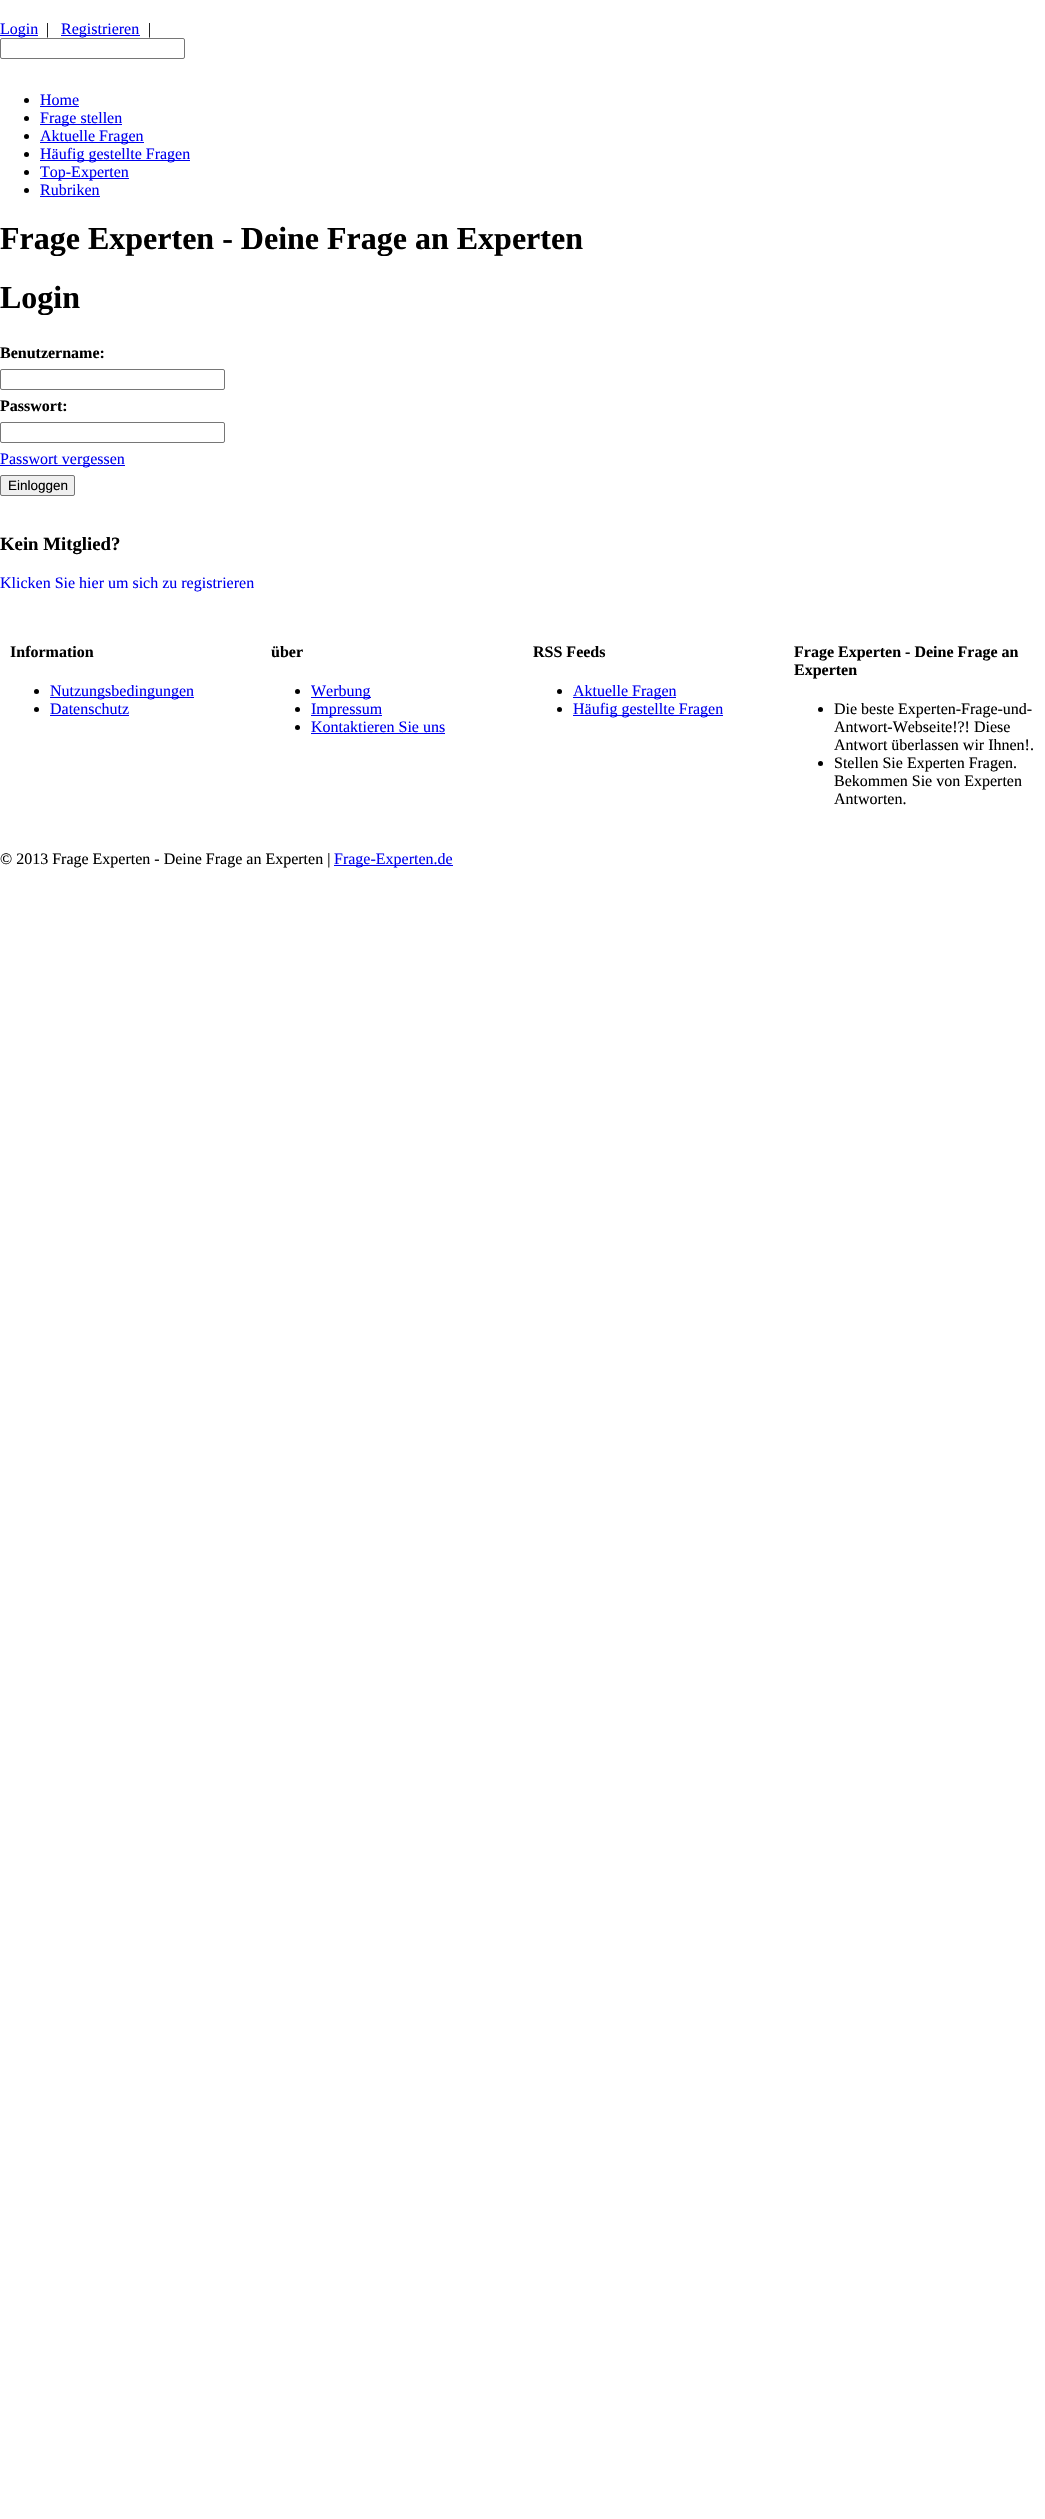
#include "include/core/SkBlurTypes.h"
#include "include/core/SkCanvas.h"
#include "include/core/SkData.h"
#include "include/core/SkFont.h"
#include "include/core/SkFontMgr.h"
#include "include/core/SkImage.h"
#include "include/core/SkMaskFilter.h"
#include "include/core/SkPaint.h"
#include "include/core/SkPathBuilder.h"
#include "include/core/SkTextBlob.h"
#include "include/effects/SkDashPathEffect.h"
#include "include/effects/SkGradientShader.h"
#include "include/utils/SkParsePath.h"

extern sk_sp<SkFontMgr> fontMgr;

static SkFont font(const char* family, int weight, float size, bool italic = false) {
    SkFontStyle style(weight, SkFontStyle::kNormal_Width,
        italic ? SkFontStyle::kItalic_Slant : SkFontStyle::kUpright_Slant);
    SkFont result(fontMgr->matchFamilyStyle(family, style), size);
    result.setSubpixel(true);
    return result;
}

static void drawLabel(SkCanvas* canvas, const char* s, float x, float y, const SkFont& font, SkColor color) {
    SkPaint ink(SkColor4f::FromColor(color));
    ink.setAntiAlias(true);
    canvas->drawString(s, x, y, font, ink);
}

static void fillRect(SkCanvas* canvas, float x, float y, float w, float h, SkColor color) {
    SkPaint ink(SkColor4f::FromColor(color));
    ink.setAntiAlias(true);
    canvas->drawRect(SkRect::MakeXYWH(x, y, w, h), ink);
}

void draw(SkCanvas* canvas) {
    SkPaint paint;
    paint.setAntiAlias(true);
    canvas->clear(0xFFFFFFFF);
    fillRect(canvas, 0, 35, 38, 1, 0xFF0000EE);
    SkFont font1 = font("Liberation Serif", 400, 16);
    drawLabel(canvas, "Login", 0, 34, font1, 0xFF0000EE);
    drawLabel(canvas, "|", 46, 34, font1, 0xFF000000);
    fillRect(canvas, 61, 35, 79, 1, 0xFF0000EE);
    drawLabel(canvas, "Registrieren", 61, 34, font1, 0xFF0000EE);
    drawLabel(canvas, "|", 148, 34, font1, 0xFF000000);
    paint.setStroke(true);
    paint.setStrokeWidth(1);
    paint.setColor(0xFF767676);
    canvas->drawRoundRect(SkRect::MakeXYWH(0.5f, 38.5f, 184, 20), 1.5f, 1.5f, paint);
    paint.setStroke(false);
    paint.setColor(0xFF000000);
    canvas->drawCircle(26.5f, 100.5f, 2.5f, paint);
    drawLabel(canvas, "Home", 40, 105, font1, 0xFF0000EE);
    fillRect(canvas, 40, 106, 39, 1, 0xFF0000EE);
    canvas->drawCircle(26.5f, 118.5f, 2.5f, paint);
    fillRect(canvas, 40, 124, 82, 1, 0xFF0000EE);
    drawLabel(canvas, "Frage stellen", 40, 123, font1, 0xFF0000EE);
    canvas->drawCircle(26.5f, 136.5f, 2.5f, paint);
    fillRect(canvas, 40, 142, 104, 1, 0xFF0000EE);
    drawLabel(canvas, "Aktuelle Fragen", 40, 141, font1, 0xFF0000EE);
    canvas->drawCircle(26.5f, 154.5f, 2.5f, paint);
    fillRect(canvas, 40, 160, 150, 1, 0xFF0000EE);
    drawLabel(canvas, "Häufig gestellte Fragen", 40, 159, font1, 0xFF0000EE);
    canvas->drawCircle(26.5f, 172.5f, 2.5f, paint);
    fillRect(canvas, 40, 178, 89, 1, 0xFF0000EE);
    drawLabel(canvas, "Top-Experten", 40, 177, font1, 0xFF0000EE);
    canvas->drawCircle(26.5f, 190.5f, 2.5f, paint);
    drawLabel(canvas, "Rubriken", 40, 195, font1, 0xFF0000EE);
    fillRect(canvas, 40, 196, 60, 1, 0xFF0000EE);
    SkFont font2 = font("Liberation Serif", 700, 32);
    drawLabel(canvas, "Frage Experten - Deine Frage an Experten", 0, 249, font2, 0xFF000000);
    drawLabel(canvas, "Login", 0, 308, font2, 0xFF000000);
    SkFont font3 = font("Liberation Serif", 700, 16);
    drawLabel(canvas, "Benutzername:", 0, 358, font3, 0xFF000000);
    paint.setStroke(true);
    paint.setColor(0xFF767676);
    canvas->drawRoundRect(SkRect::MakeXYWH(0.5f, 369.5f, 224, 20), 1.5f, 1.5f, paint);
    drawLabel(canvas, "Passwort:", 0, 411, font3, 0xFF000000);
    canvas->drawRoundRect(SkRect::MakeXYWH(0.5f, 422.5f, 224, 20), 1.5f, 1.5f, paint);
    fillRect(canvas, 0, 465, 125, 1, 0xFF0000EE);
    drawLabel(canvas, "Passwort vergessen", 0, 464, font1, 0xFF0000EE);
    paint.setStroke(false);
    paint.setColor(0xFFEFEFEF);
    canvas->drawRoundRect(SkRect::MakeXYWH(0.5f, 475.5f, 74, 20), 1.5f, 1.5f, paint);
    paint.setStroke(true);
    paint.setColor(0xFF767676);
    canvas->drawRoundRect(SkRect::MakeXYWH(0.5f, 475.5f, 74, 20), 1.5f, 1.5f, paint);
    SkFont font4 = font("Liberation Sans", 400, 13.5f);
    drawLabel(canvas, "Einloggen", 8, 490, font4, 0xFF000000);
    SkFont font5 = font("Liberation Serif", 700, 18.75f);
    drawLabel(canvas, "Kein Mitglied?", 0, 550, font5, 0xFF000000);
    drawLabel(canvas, "Klicken Sie hier um sich zu registrieren", 0, 588, font1, 0xFF0000EE);
    drawLabel(canvas, "Information", 10, 657, font3, 0xFF000000);
    paint.setStroke(false);
    paint.setColor(0xFF000000);
    canvas->drawCircle(36.5f, 691.5f, 2.5f, paint);
    fillRect(canvas, 50, 697, 144, 1, 0xFF0000EE);
    drawLabel(canvas, "Nutzungsbedingungen", 50, 696, font1, 0xFF0000EE);
    canvas->drawCircle(36.5f, 709.5f, 2.5f, paint);
    drawLabel(canvas, "Datenschutz", 50, 714, font1, 0xFF0000EE);
    fillRect(canvas, 50, 715, 79, 1, 0xFF0000EE);
    drawLabel(canvas, "über", 271, 657, font3, 0xFF000000);
    canvas->drawCircle(297.5f, 691.5f, 2.5f, paint);
    fillRect(canvas, 311, 697, 60, 1, 0xFF0000EE);
    drawLabel(canvas, "Werbung", 311, 696, font1, 0xFF0000EE);
    canvas->drawCircle(297.5f, 709.5f, 2.5f, paint);
    fillRect(canvas, 311, 715, 71, 1, 0xFF0000EE);
    drawLabel(canvas, "Impressum", 311, 714, font1, 0xFF0000EE);
    canvas->drawCircle(297.5f, 727.5f, 2.5f, paint);
    drawLabel(canvas, "Kontaktieren Sie uns", 311, 732, font1, 0xFF0000EE);
    fillRect(canvas, 311, 733, 134, 1, 0xFF0000EE);
    drawLabel(canvas, "RSS Feeds", 533, 657, font3, 0xFF000000);
    canvas->drawCircle(559.5f, 691.5f, 2.5f, paint);
    fillRect(canvas, 573, 697, 103, 1, 0xFF0000EE);
    drawLabel(canvas, "Aktuelle Fragen", 573, 696, font1, 0xFF0000EE);
    canvas->drawCircle(559.5f, 709.5f, 2.5f, paint);
    fillRect(canvas, 573, 715, 150, 1, 0xFF0000EE);
    drawLabel(canvas, "Häufig gestellte Fragen", 573, 714, font1, 0xFF0000EE);
    drawLabel(canvas, "Frage Experten - Deine Frage an", 794, 657, font3, 0xFF000000);
    drawLabel(canvas, "Experten", 794, 675, font3, 0xFF000000);
    canvas->drawCircle(820.5f, 709.5f, 2.5f, paint);
    drawLabel(canvas, "Die beste Experten-Frage-und-", 834, 714, font1, 0xFF000000);
    drawLabel(canvas, "Antwort-Webseite!?! Diese", 834, 732, font1, 0xFF000000);
    drawLabel(canvas, "Antwort überlassen wir Ihnen!.", 834, 750, font1, 0xFF000000);
    canvas->drawCircle(820.5f, 763.5f, 2.5f, paint);
    drawLabel(canvas, "Stellen Sie Experten Fragen.", 834, 768, font1, 0xFF000000);
    drawLabel(canvas, "Bekommen Sie von Experten", 834, 786, font1, 0xFF000000);
    drawLabel(canvas, "Antworten.", 834, 804, font1, 0xFF000000);
    drawLabel(canvas, "© 2013 Frage Experten - Deine Frage an Experten |", 0, 864, font1, 0xFF000000);
    fillRect(canvas, 334, 865, 119, 1, 0xFF0000EE);
    drawLabel(canvas, "Frage-Experten.de", 334, 864, font1, 0xFF0000EE);
}
